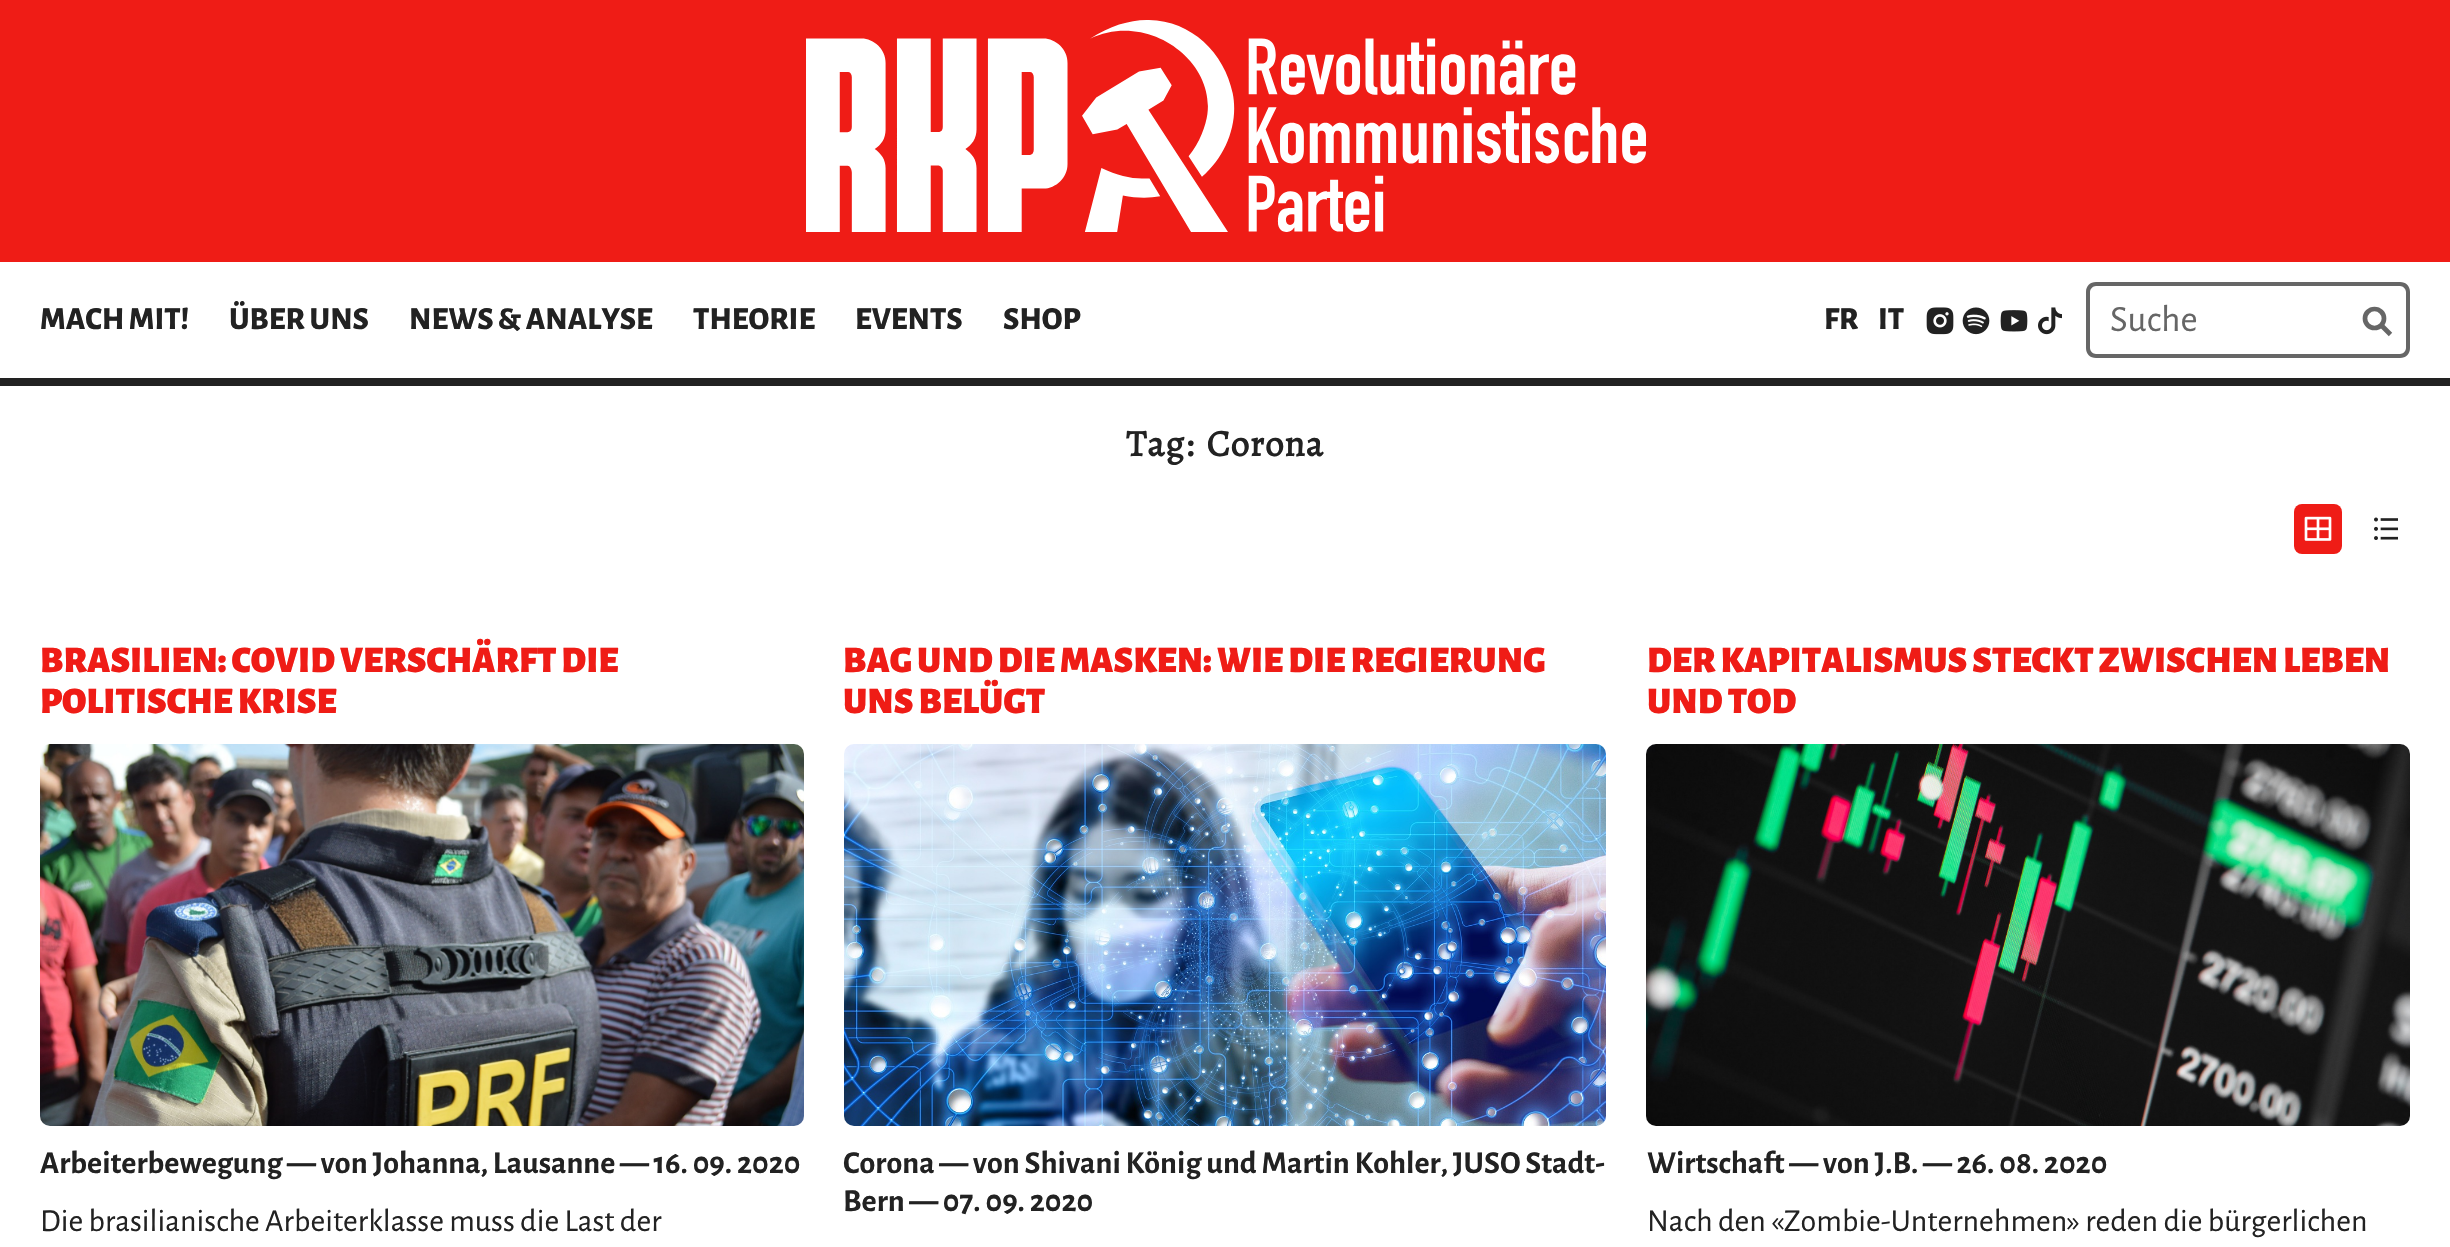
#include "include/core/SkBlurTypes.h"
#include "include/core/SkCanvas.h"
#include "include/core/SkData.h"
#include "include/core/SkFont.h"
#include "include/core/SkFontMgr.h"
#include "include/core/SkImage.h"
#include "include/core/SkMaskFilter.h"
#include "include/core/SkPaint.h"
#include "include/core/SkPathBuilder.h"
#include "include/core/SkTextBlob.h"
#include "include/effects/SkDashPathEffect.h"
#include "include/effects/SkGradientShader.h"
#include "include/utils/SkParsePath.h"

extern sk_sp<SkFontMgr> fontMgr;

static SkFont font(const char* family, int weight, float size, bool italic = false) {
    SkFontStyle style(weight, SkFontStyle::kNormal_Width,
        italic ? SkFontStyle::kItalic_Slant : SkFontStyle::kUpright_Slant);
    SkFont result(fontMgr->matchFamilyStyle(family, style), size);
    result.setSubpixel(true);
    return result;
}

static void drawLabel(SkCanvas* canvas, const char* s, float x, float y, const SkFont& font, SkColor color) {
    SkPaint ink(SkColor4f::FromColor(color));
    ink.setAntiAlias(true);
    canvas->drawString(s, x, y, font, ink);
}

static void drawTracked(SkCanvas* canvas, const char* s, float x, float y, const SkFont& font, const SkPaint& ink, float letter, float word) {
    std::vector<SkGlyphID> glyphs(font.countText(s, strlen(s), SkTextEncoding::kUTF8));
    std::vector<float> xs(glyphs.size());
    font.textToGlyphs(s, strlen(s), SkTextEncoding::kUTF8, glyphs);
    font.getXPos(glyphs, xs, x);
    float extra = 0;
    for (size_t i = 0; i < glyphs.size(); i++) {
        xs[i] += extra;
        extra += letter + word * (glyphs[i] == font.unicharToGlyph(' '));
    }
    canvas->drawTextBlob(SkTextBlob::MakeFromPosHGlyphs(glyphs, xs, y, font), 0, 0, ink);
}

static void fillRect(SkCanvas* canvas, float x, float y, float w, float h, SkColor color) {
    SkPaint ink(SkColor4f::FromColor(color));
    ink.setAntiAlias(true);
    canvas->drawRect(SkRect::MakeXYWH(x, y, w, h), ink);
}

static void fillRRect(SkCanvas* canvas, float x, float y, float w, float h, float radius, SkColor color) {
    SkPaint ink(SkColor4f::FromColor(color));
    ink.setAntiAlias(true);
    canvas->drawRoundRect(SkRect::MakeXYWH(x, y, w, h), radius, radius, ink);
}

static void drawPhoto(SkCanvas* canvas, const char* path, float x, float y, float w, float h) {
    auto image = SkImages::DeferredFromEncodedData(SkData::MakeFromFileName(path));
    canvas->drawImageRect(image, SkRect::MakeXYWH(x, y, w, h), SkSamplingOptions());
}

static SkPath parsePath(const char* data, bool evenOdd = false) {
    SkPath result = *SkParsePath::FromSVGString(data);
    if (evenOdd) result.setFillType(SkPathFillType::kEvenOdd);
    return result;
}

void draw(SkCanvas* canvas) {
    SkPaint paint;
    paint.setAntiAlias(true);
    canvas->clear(0xFFFFFFFF);
    fillRect(canvas, 0, 0, 2450, 262, 0xFFEF1C16);
    drawPhoto(canvas, "assets/img1.png", 806, 20, 840, 212);
    fillRect(canvas, 0, 378, 2450, 8, 0xFF222222);
    SkFont font1 = font("Alegreya Sans", 800, 32);
    drawLabel(canvas, "MACH MIT!", 40, 329, font1, 0xFF222222);
    drawLabel(canvas, "ÜBER UNS", 229, 329, font1, 0xFF222222);
    drawLabel(canvas, "NEWS & ANALYSE", 409, 329, font1, 0xFF222222);
    drawLabel(canvas, "THEORIE", 693, 329, font1, 0xFF222222);
    drawLabel(canvas, "EVENTS", 855, 329, font1, 0xFF222222);
    drawLabel(canvas, "SHOP", 1003, 329, font1, 0xFF222222);
    drawLabel(canvas, "FR", 1824, 329, font1, 0xFF222222);
    drawLabel(canvas, "IT", 1878, 329, font1, 0xFF222222);
    drawPhoto(canvas, "assets/img2.png", 1926, 307, 28, 28);
    drawPhoto(canvas, "assets/img3.png", 1962, 307, 28, 28);
    drawPhoto(canvas, "assets/img4.png", 2000, 310, 28, 22);
    drawPhoto(canvas, "assets/img5.png", 2038, 307, 24, 28);
    paint.setColor(0xFF666666);
    canvas->drawPath(parsePath("M2096 282H2346V358H2096C2090 358 2086 354 2086 348V292C2086 286 2090 282 2096 282ZM2096 286H2346V354H2096C2093 354 2090 351 2090 348V292C2090 289 2093 286 2096 286Z", true), paint);
    SkFont font2 = font("Alegreya Sans", 400, 37.3f);
    drawLabel(canvas, "Suche", 2110, 331, font2, 0xFF666666);
    canvas->drawPath(parsePath("M2346 282H2400C2406 282 2410 286 2410 292V348C2410 354 2406 358 2400 358H2346ZM2346 286H2400C2403 286 2406 289 2406 292V348C2406 351 2403 354 2400 354H2346Z", true), paint);
    paint.setStroke(true);
    paint.setStrokeWidth(4.7f);
    canvas->drawCircle(2374.5f, 318.5f, 9.5f, paint);
    canvas->drawPath(parsePath("M2381 325L2390.5 334.5"), paint);
    SkFont font3 = font("Alegreya", 700, 37.3f);
    paint.setStroke(false);
    paint.setColor(0xFF222222);
    drawTracked(canvas, "Tag: Corona", 1126, 456, font3, paint, 0.75f, 4);
    fillRRect(canvas, 2294, 504, 48, 50, 8, 0xFFEF1C16);
    drawPhoto(canvas, "assets/img6.png", 2304, 516, 28, 25);
    drawPhoto(canvas, "assets/img7.png", 2374, 517, 24, 23);
    SkFont font4 = font("Alegreya Sans", 900, 37.3f);
    drawLabel(canvas, "BRASILIEN: COVID VERSCHÄRFT DIE", 40, 672, font4, 0xFFEF1C16);
    drawLabel(canvas, "POLITISCHE KRISE", 40, 713, font4, 0xFFEF1C16);
    drawPhoto(canvas, "assets/img8.png", 40, 744, 764, 382);
    SkFont font5 = font("Alegreya Sans", 700, 32);
    drawLabel(canvas, "Arbeiterbewegung — von Johanna, Lausanne — 16. 09. 2020", 40, 1173, font5, 0xFF222222);
    SkFont font6 = font("Alegreya Sans", 400, 32);
    drawLabel(canvas, "Die brasilianische Arbeiterklasse muss die Last der", 40, 1231, font6, 0xFF222222);
    drawLabel(canvas, "BAG UND DIE MASKEN: WIE DIE REGIERUNG", 843, 672, font4, 0xFFEF1C16);
    drawLabel(canvas, "UNS BELÜGT", 843, 713, font4, 0xFFEF1C16);
    drawPhoto(canvas, "assets/img9.png", 844, 744, 762, 382);
    drawLabel(canvas, "Corona — von Shivani König und Martin Kohler, JUSO Stadt-", 843, 1173, font5, 0xFF222222);
    drawLabel(canvas, "Bern — 07. 09. 2020", 843, 1211, font5, 0xFF222222);
    drawLabel(canvas, "DER KAPITALISMUS STECKT ZWISCHEN LEBEN", 1647, 672, font4, 0xFFEF1C16);
    drawLabel(canvas, "UND TOD", 1647, 713, font4, 0xFFEF1C16);
    drawPhoto(canvas, "assets/img10.png", 1646, 744, 764, 382);
    drawLabel(canvas, "Wirtschaft — von J.B. — 26. 08. 2020", 1647, 1173, font5, 0xFF222222);
    drawLabel(canvas, "Nach den «Zombie-Unternehmen» reden die bürgerlichen", 1647, 1231, font6, 0xFF222222);
}
